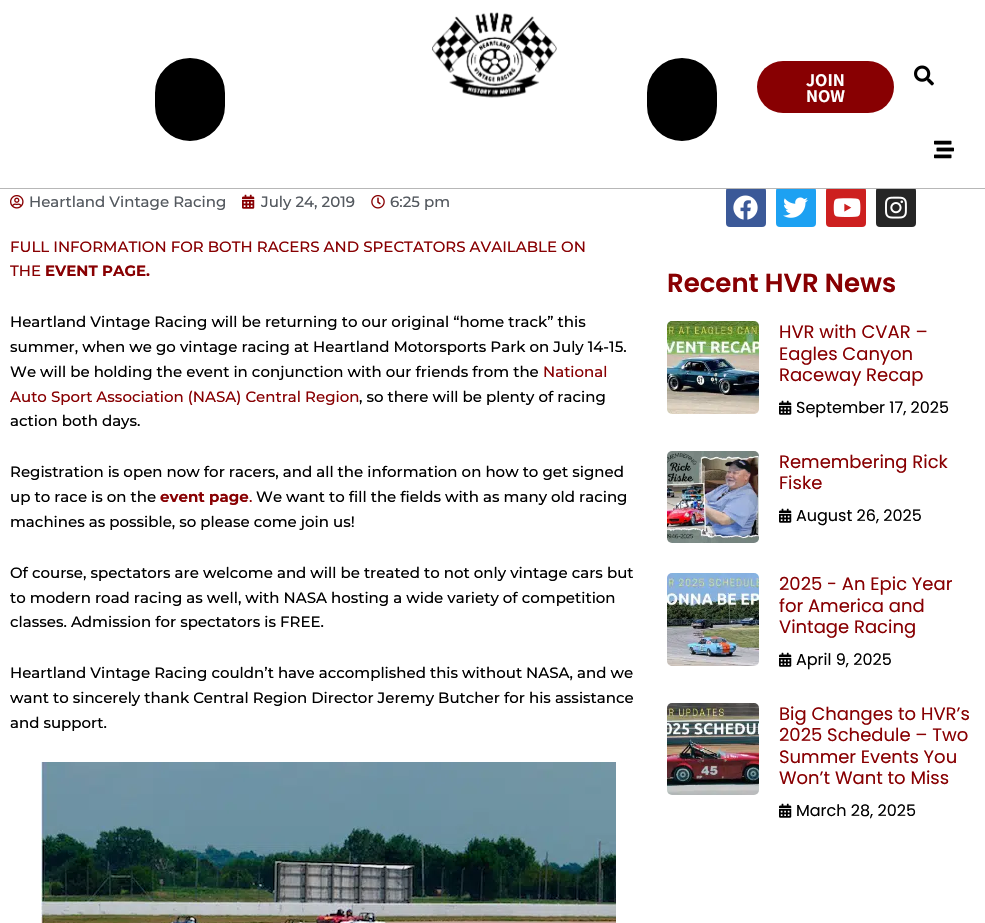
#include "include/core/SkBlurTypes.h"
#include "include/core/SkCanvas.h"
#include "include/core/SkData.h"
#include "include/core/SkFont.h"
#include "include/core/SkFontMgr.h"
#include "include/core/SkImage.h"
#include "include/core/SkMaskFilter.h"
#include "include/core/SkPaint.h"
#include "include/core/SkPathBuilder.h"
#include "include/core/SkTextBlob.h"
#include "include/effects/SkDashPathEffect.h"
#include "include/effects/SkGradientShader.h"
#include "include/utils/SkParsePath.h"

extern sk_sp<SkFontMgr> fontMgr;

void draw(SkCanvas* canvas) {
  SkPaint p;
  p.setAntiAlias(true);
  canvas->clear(SK_ColorWHITE);
  p.setColor(SkColorSetRGB(59, 89, 152));
  canvas->drawRoundRect(SkRect::MakeLTRB(726, 187, 766, 227), 4, 4, p);
  p.setColor(SkColorSetRGB(29, 161, 242));
  canvas->drawRoundRect(SkRect::MakeLTRB(776, 187, 816, 227), 4, 4, p);
  p.setColor(SkColorSetRGB(205, 32, 31));
  canvas->drawRoundRect(SkRect::MakeLTRB(826, 187, 866, 227), 4, 4, p);
  p.setColor(SkColorSetRGB(38, 38, 38));
  canvas->drawRoundRect(SkRect::MakeLTRB(876, 187, 916, 227), 4, 4, p);
  p.setColor(SK_ColorWHITE);
  canvas->drawRect(SkRect::MakeLTRB(727, 187, 915, 188), p);
  p.setColor(SkColorSetRGB(183, 183, 183));
  canvas->drawRect(SkRect::MakeLTRB(0, 188, 985, 189), p);
  p.setColor(SK_ColorBLACK);
  canvas->drawRoundRect(SkRect::MakeLTRB(153, 56, 227, 143), 37, 37, p);
  p.setStyle(SkPaint::kStroke_Style);
  p.setStrokeWidth(4);
  p.setColor(SK_ColorWHITE);
  canvas->drawRoundRect(SkRect::MakeLTRB(153, 56, 227, 143), 37, 37, p);
  canvas->drawImageRect(SkImages::DeferredFromEncodedData(SkData::MakeFromFileName("images/1.png")), SkRect::MakeLTRB(432, 12, 557, 98), SkSamplingOptions());
  p.setStyle(SkPaint::kFill_Style);
  p.setColor(SK_ColorBLACK);
  canvas->drawRoundRect(SkRect::MakeLTRB(645, 56, 719, 143), 37, 37, p);
  p.setStyle(SkPaint::kStroke_Style);
  p.setColor(SK_ColorWHITE);
  canvas->drawRoundRect(SkRect::MakeLTRB(645, 56, 719, 143), 37, 37, p);
  p.setStyle(SkPaint::kFill_Style);
  p.setColor(SkColorSetRGB(136, 0, 2));
  canvas->drawRoundRect(SkRect::MakeLTRB(757, 61, 894, 113), 26, 26, p);
  canvas->drawImageRect(SkImages::DeferredFromEncodedData(SkData::MakeFromFileName("images/2.png")), SkRect::MakeLTRB(914, 65, 934, 86), SkSamplingOptions());
  canvas->drawImageRect(SkImages::DeferredFromEncodedData(SkData::MakeFromFileName("images/3.png")), SkRect::MakeLTRB(934, 140, 954, 159), SkSamplingOptions());
  canvas->drawImageRect(SkImages::DeferredFromEncodedData(SkData::MakeFromFileName("images/4.png")), SkRect::MakeLTRB(10, 195, 24, 209), SkSamplingOptions());
  canvas->drawImageRect(SkImages::DeferredFromEncodedData(SkData::MakeFromFileName("images/5.png")), SkRect::MakeLTRB(242, 194, 255, 209), SkSamplingOptions());
  canvas->drawImageRect(SkImages::DeferredFromEncodedData(SkData::MakeFromFileName("images/6.png")), SkRect::MakeLTRB(371, 195, 385, 209), SkSamplingOptions());
  canvas->drawImageRect(SkImages::DeferredFromEncodedData(SkData::MakeFromFileName("images/7.png")), SkRect::MakeLTRB(41, 762, 616, 923), SkSamplingOptions());
  canvas->drawImageRect(SkImages::DeferredFromEncodedData(SkData::MakeFromFileName("images/8.png")), SkRect::MakeLTRB(733, 195, 758, 220), SkSamplingOptions());
  canvas->drawImageRect(SkImages::DeferredFromEncodedData(SkData::MakeFromFileName("images/9.png")), SkRect::MakeLTRB(783, 197, 808, 218), SkSamplingOptions());
  canvas->drawImageRect(SkImages::DeferredFromEncodedData(SkData::MakeFromFileName("images/10.png")), SkRect::MakeLTRB(833, 198, 861, 217), SkSamplingOptions());
  canvas->drawImageRect(SkImages::DeferredFromEncodedData(SkData::MakeFromFileName("images/11.png")), SkRect::MakeLTRB(885, 196, 907, 219), SkSamplingOptions());
  canvas->drawImageRect(SkImages::DeferredFromEncodedData(SkData::MakeFromFileName("images/12.png")), SkRect::MakeLTRB(667, 321, 759, 414), SkSamplingOptions());
  canvas->drawImageRect(SkImages::DeferredFromEncodedData(SkData::MakeFromFileName("images/13.png")), SkRect::MakeLTRB(779, 400, 792, 415), SkSamplingOptions());
  canvas->drawImageRect(SkImages::DeferredFromEncodedData(SkData::MakeFromFileName("images/14.png")), SkRect::MakeLTRB(667, 451, 759, 543), SkSamplingOptions());
  canvas->drawImageRect(SkImages::DeferredFromEncodedData(SkData::MakeFromFileName("images/13.png")), SkRect::MakeLTRB(779, 508, 792, 523), SkSamplingOptions());
  canvas->drawImageRect(SkImages::DeferredFromEncodedData(SkData::MakeFromFileName("images/15.png")), SkRect::MakeLTRB(667, 573, 759, 666), SkSamplingOptions());
  canvas->drawImageRect(SkImages::DeferredFromEncodedData(SkData::MakeFromFileName("images/13.png")), SkRect::MakeLTRB(779, 652, 792, 667), SkSamplingOptions());
  canvas->drawImageRect(SkImages::DeferredFromEncodedData(SkData::MakeFromFileName("images/16.png")), SkRect::MakeLTRB(667, 703, 759, 795), SkSamplingOptions());
  canvas->drawImageRect(SkImages::DeferredFromEncodedData(SkData::MakeFromFileName("images/13.png")), SkRect::MakeLTRB(779, 803, 792, 818), SkSamplingOptions());
  SkFont font1(fontMgr->matchFamilyStyle("Noto Sans KR", SkFontStyle::Bold()), 16);
  font1.setSubpixel(true);
  p.setColor(SK_ColorWHITE);
  canvas->drawString("JOIN", 806, 86, font1, p);
  canvas->drawString("NOW", 806, 102, font1, p);
  SkFont font2(fontMgr->matchFamilyStyle("Montserrat", SkFontStyle(500, SkFontStyle::kNormal_Width, SkFontStyle::kUpright_Slant)), 15);
  font2.setSubpixel(true);
  p.setColor(SkColorSetRGB(84, 89, 95));
  canvas->drawString("Heartland Vintage Racing", 29, 207, font2, p);
  canvas->drawString("July 24, 2019", 261, 207, font2, p);
  canvas->drawString("6:25 pm", 390, 207, font2, p);
  p.setColor(SkColorSetRGB(136, 0, 2));
  canvas->drawString("FULL INFORMATION FOR BOTH RACERS AND SPECTATORS AVAILABLE ON", 10, 252, font2, p);
  canvas->drawString("THE", 10, 276, font2, p);
  SkFont font3(fontMgr->matchFamilyStyle("Montserrat", SkFontStyle::Bold()), 15);
  font3.setSubpixel(true);
  canvas->drawString("EVENT PAGE.", 45, 276, font3, p);
  p.setColor(SK_ColorBLACK);
  canvas->drawString("Heartland Vintage Racing will be returning to our original “home track” this", 10, 327, font2, p);
  canvas->drawString("summer, when we go vintage racing at Heartland Motorsports Park on July 14-15.", 10, 352, font2, p);
  canvas->drawString("We will be holding the event in conjunction with our friends from the", 10, 377, font2, p);
  p.setColor(SkColorSetRGB(136, 0, 2));
  canvas->drawString("National", 543, 377, font2, p);
  canvas->drawString("Auto Sport Association (NASA) Central Region", 10, 402, font2, p);
  p.setColor(SK_ColorBLACK);
  canvas->drawString(", so there will be plenty of racing", 359, 402, font2, p);
  canvas->drawString("action both days.", 10, 426, font2, p);
  canvas->drawString("Registration is open now for racers, and all the information on how to get signed", 10, 477, font2, p);
  canvas->drawString("up to race is on the", 10, 502, font2, p);
  p.setColor(SkColorSetRGB(136, 0, 2));
  canvas->drawString("event page", 160, 502, font3, p);
  canvas->drawString(".", 249, 502, font2, p);
  p.setColor(SK_ColorBLACK);
  canvas->drawString("We want to fill the fields with as many old racing", 256, 502, font2, p);
  canvas->drawString("machines as possible, so please come join us!", 10, 527, font2, p);
  canvas->drawString("Of course, spectators are welcome and will be treated to not only vintage cars but", 10, 578, font2, p);
  canvas->drawString("to modern road racing as well, with NASA hosting a wide variety of competition", 10, 603, font2, p);
  canvas->drawString("classes. Admission for spectators is FREE.", 10, 627, font2, p);
  canvas->drawString("Heartland Vintage Racing couldn’t have accomplished this without NASA, and we", 10, 678, font2, p);
  canvas->drawString("want to sincerely thank Central Region Director Jeremy Butcher for his assistance", 10, 703, font2, p);
  canvas->drawString("and support.", 10, 728, font2, p);
  SkFont font4(fontMgr->matchFamilyStyle("Poppins", SkFontStyle(600, SkFontStyle::kNormal_Width, SkFontStyle::kUpright_Slant)), 26);
  font4.setSubpixel(true);
  p.setColor(SkColorSetRGB(136, 0, 2));
  canvas->drawString("Recent HVR News", 667, 292, font4, p);
  SkFont font5(fontMgr->matchFamilyStyle("Poppins", SkFontStyle::Normal()), 18);
  font5.setSubpixel(true);
  canvas->drawString("HVR with CVAR –", 779, 338, font5, p);
  canvas->drawString("Eagles Canyon", 779, 360, font5, p);
  canvas->drawString("Raceway Recap", 779, 381, font5, p);
  SkFont font6(fontMgr->matchFamilyStyle("Poppins", SkFontStyle::Normal()), 16);
  font6.setSubpixel(true);
  p.setColor(SK_ColorBLACK);
  canvas->drawString("September 17, 2025", 796, 413, font6, p);
  p.setColor(SkColorSetRGB(136, 0, 2));
  canvas->drawString("Remembering Rick", 779, 468, font5, p);
  canvas->drawString("Fiske", 779, 489, font5, p);
  p.setColor(SK_ColorBLACK);
  canvas->drawString("August 26, 2025", 796, 521, font6, p);
  p.setColor(SkColorSetRGB(136, 0, 2));
  canvas->drawString("2025 - An Epic Year", 779, 590, font5, p);
  canvas->drawString("for America and", 779, 612, font5, p);
  canvas->drawString("Vintage Racing", 779, 633, font5, p);
  p.setColor(SK_ColorBLACK);
  canvas->drawString("April 9, 2025", 796, 665, font6, p);
  p.setColor(SkColorSetRGB(136, 0, 2));
  canvas->drawString("Big Changes to HVR’s", 779, 720, font5, p);
  canvas->drawString("2025 Schedule – Two", 779, 741, font5, p);
  canvas->drawString("Summer Events You", 779, 763, font5, p);
  canvas->drawString("Won’t Want to Miss", 779, 784, font5, p);
  p.setColor(SK_ColorBLACK);
  canvas->drawString("March 28, 2025", 796, 816, font6, p);
}
